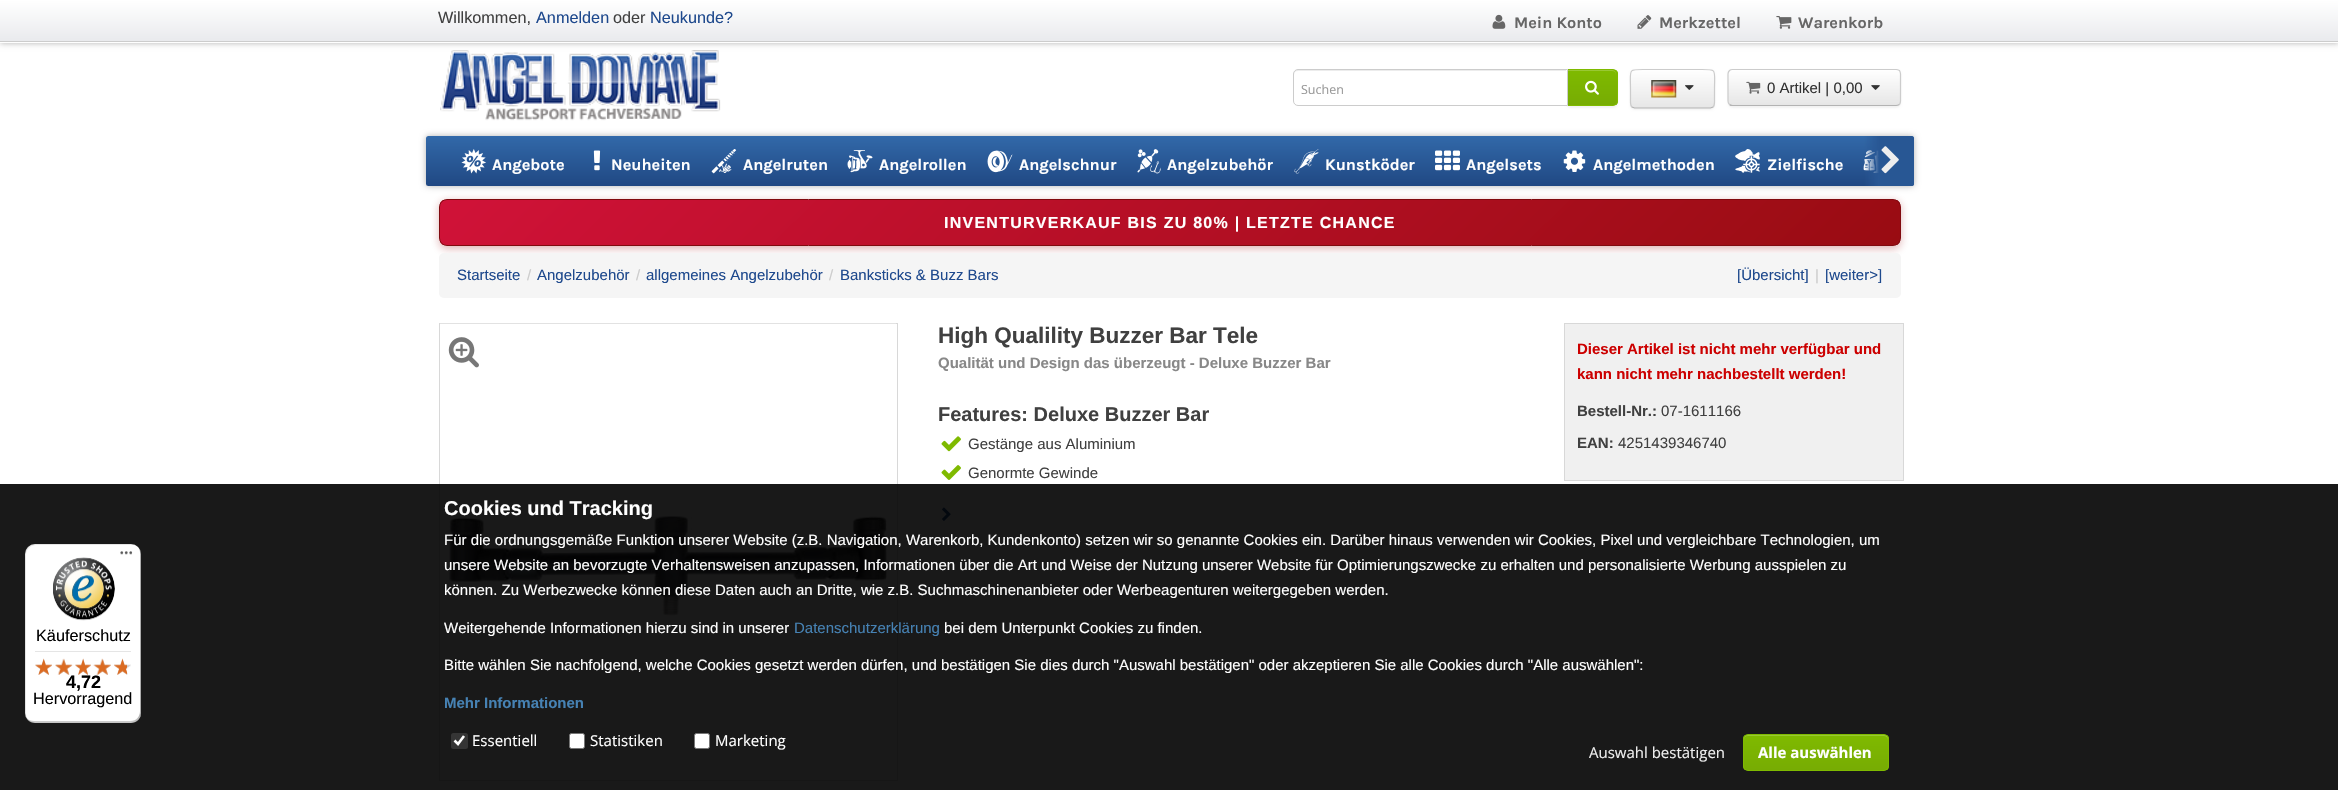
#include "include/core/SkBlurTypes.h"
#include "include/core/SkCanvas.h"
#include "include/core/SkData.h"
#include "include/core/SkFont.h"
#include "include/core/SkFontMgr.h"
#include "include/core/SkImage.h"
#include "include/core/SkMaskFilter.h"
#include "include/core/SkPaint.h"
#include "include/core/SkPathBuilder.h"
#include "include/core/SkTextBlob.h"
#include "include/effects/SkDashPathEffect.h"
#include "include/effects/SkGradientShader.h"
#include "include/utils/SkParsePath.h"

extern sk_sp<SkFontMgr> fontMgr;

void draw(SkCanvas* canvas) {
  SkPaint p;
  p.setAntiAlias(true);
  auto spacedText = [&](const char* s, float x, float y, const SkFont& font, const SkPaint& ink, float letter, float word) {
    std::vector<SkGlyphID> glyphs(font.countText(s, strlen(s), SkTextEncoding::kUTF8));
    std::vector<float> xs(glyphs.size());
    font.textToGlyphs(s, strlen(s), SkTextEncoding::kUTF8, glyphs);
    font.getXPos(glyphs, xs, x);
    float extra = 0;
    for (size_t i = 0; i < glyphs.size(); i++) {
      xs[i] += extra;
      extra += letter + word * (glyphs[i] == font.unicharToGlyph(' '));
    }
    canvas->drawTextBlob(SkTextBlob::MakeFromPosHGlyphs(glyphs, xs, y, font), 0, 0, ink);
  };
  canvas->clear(SK_ColorWHITE);
  canvas->drawImageRect(SkImages::DeferredFromEncodedData(SkData::MakeFromFileName("images/4.png")), SkRect::MakeLTRB(440, 50, 721, 121), SkSamplingOptions());
  p.setColor(SkColorSetARGB(77, 0, 0, 0));
  p.setMaskFilter(SkMaskFilter::MakeBlur(kNormal_SkBlurStyle, 3));
  canvas->drawRect(SkRect::MakeLTRB(0, 0, 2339, 43), p);
  p.setMaskFilter(nullptr);
  {
    const SkColor colors[] = {SK_ColorWHITE, SkColorSetRGB(233, 234, 237)};
    const float stops[] = {0, 1};
    const SkPoint ends[] = {{1169, 0}, {1169, 41}};
    p.setShader(SkGradientShader::MakeLinear(ends, colors, stops, 2, SkTileMode::kClamp));
    p.setAlpha(255);
  }
  canvas->drawRect(SkRect::MakeLTRB(0, 0, 2338, 41), p);
  {
    const SkColor colors[] = {SK_ColorWHITE, SkColorSetRGB(233, 234, 237)};
    const float stops[] = {0, 1};
    const SkPoint ends[] = {{1169, 41}, {1169, 83}};
    p.setShader(SkGradientShader::MakeLinear(ends, colors, stops, 2, SkTileMode::kClamp));
    p.setAlpha(255);
  }
  canvas->drawRect(SkRect::MakeLTRB(0, 42, 2338, 43), p);
  p.setShader(nullptr);
  p.setColor(SkColorSetRGB(204, 204, 204));
  canvas->drawRect(SkRect::MakeLTRB(0, 41, 2338, 42), p);
  canvas->drawImageRect(SkImages::DeferredFromEncodedData(SkData::MakeFromFileName("images/1.png")), SkRect::MakeLTRB(1492, 14, 1506, 29), SkSamplingOptions());
  canvas->drawImageRect(SkImages::DeferredFromEncodedData(SkData::MakeFromFileName("images/2.png")), SkRect::MakeLTRB(1637, 15, 1652, 29), SkSamplingOptions());
  canvas->drawImageRect(SkImages::DeferredFromEncodedData(SkData::MakeFromFileName("images/3.png")), SkRect::MakeLTRB(1776, 16, 1792, 29), SkSamplingOptions());
  p.setColor(SkColorSetARGB(13, 0, 0, 0));
  p.setMaskFilter(SkMaskFilter::MakeBlur(kNormal_SkBlurStyle, 1));
  canvas->drawRoundRect(SkRect::MakeLTRB(1566, 70, 1618, 108), 5, 5, p);
  p.setMaskFilter(nullptr);
  canvas->save();
  canvas->clipPath(SkPathBuilder().moveTo(1566, 69).lineTo(1613, 69).cubicTo(1616, 69, 1618, 71, 1618, 74).lineTo(1618, 101).cubicTo(1618, 104, 1616, 106, 1613, 106).lineTo(1566, 106).close().detach(), true);
  {
    const SkColor colors[] = {SkColorSetRGB(127, 186, 0), SkColorSetRGB(119, 172, 3)};
    const float stops[] = {0, 1};
    const SkPoint ends[] = {{1592, 70}, {1592, 105}};
    p.setShader(SkGradientShader::MakeLinear(ends, colors, stops, 2, SkTileMode::kClamp));
    p.setAlpha(255);
  }
  canvas->drawRect(SkRect::MakeLTRB(1568, 70, 1618, 105), p);
  canvas->restore();
  p.setShader(nullptr);
  p.setColor(SkColorSetRGB(153, 200, 51));
  canvas->drawPath(SkPathBuilder().moveTo(1568, 71).lineTo(1612, 71).cubicTo(1615, 71, 1616, 73, 1616, 75).lineTo(1616, 74).cubicTo(1616, 72, 1614, 70, 1612, 70).lineTo(1568, 70).close().detach(), p);
  p.setStyle(SkPaint::kStroke_Style);
  p.setStrokeWidth(1);
  p.setColor(SkColorSetRGB(127, 186, 0));
  canvas->drawPath(SkPathBuilder().moveTo(1566.5f, 69.5f).lineTo(1613, 69.5f).cubicTo(1615.5f, 69.5f, 1617.5f, 71.5f, 1617.5f, 74).lineTo(1617.5f, 101).cubicTo(1617.5f, 103.5f, 1615.5f, 105.5f, 1613, 105.5f).lineTo(1566.5f, 105.5f).close().detach(), p);
  p.setStyle(SkPaint::kFill_Style);
  p.setColor(SK_ColorWHITE);
  canvas->drawPath(SkPathBuilder().moveTo(1298, 69).lineTo(1568, 69).lineTo(1568, 106).lineTo(1298, 106).cubicTo(1295, 106, 1293, 104, 1293, 101).lineTo(1293, 74).cubicTo(1293, 71, 1295, 69, 1298, 69).close().detach(), p);
  p.setColor(SkColorSetRGB(236, 236, 236));
  canvas->drawPath(SkPathBuilder().moveTo(1298, 71).lineTo(1566, 71).lineTo(1566, 70).lineTo(1298, 70).cubicTo(1295, 70, 1294, 72, 1294, 75).cubicTo(1294, 73, 1295, 71, 1298, 71).close().detach(), p);
  p.setStyle(SkPaint::kStroke_Style);
  p.setColor(SkColorSetRGB(204, 204, 204));
  canvas->drawPath(SkPathBuilder().moveTo(1298, 69.5f).lineTo(1567.5f, 69.5f).lineTo(1567.5f, 105.5f).lineTo(1298, 105.5f).cubicTo(1295.5f, 105.5f, 1293.5f, 103.5f, 1293.5f, 101).lineTo(1293.5f, 74).cubicTo(1293.5f, 71.5f, 1295.5f, 69.5f, 1298, 69.5f).close().detach(), p);
  canvas->drawImageRect(SkImages::DeferredFromEncodedData(SkData::MakeFromFileName("images/5.png")), SkRect::MakeLTRB(1585, 80, 1599, 95), SkSamplingOptions());
  p.setStyle(SkPaint::kFill_Style);
  p.setColor(SkColorSetARGB(13, 0, 0, 0));
  p.setMaskFilter(SkMaskFilter::MakeBlur(kNormal_SkBlurStyle, 1));
  canvas->drawRoundRect(SkRect::MakeLTRB(1630, 70, 1715, 110), 5, 5, p);
  p.setMaskFilter(nullptr);
  p.setColor(SkColorSetRGB(245, 245, 245));
  canvas->drawRoundRect(SkRect::MakeLTRB(1630, 69, 1715, 109), 5, 5, p);
  canvas->save();
  canvas->clipPath(SkPathBuilder().moveTo(1635, 69).lineTo(1710, 69).cubicTo(1713, 69, 1715, 71, 1715, 74).lineTo(1715, 104).cubicTo(1715, 107, 1713, 109, 1710, 109).lineTo(1635, 109).cubicTo(1632, 109, 1630, 107, 1630, 104).lineTo(1630, 74).cubicTo(1630, 71, 1632, 69, 1635, 69).close().detach(), true);
  {
    const SkColor colors[] = {SK_ColorWHITE, SkColorSetRGB(230, 230, 230)};
    const float stops[] = {0, 1};
    const SkPoint ends[] = {{1673, 70}, {1673, 108}};
    p.setShader(SkGradientShader::MakeLinear(ends, colors, stops, 2, SkTileMode::kClamp));
    p.setAlpha(255);
  }
  canvas->drawRect(SkRect::MakeLTRB(1630, 70, 1715, 108), p);
  canvas->restore();
  p.setStyle(SkPaint::kStroke_Style);
  p.setStrokeWidth(1.2f);
  p.setShader(nullptr);
  p.setColor(SkColorSetRGB(179, 179, 179));
  canvas->drawPath(SkPathBuilder().moveTo(1713, 107).lineTo(1710.5f, 108).lineTo(1634.5f, 108).lineTo(1632, 107).detach(), p);
  p.setColor(SkColorSetRGB(204, 204, 204));
  canvas->drawPath(SkPathBuilder().moveTo(1632, 107).cubicTo(1630, 105, 1630.5f, 101, 1630.5f, 99).lineTo(1630.5f, 89).cubicTo(1630.5f, 68, 1627, 69.5f, 1647.5f, 69.5f).lineTo(1697.5f, 69.5f).cubicTo(1718, 69.5f, 1714.5f, 68, 1714.5f, 89).lineTo(1714.5f, 99).cubicTo(1714.5f, 101, 1715, 105, 1713, 107).detach(), p);
  canvas->drawImageRect(SkImages::DeferredFromEncodedData(SkData::MakeFromFileName("images/6.png")), SkRect::MakeLTRB(1651, 80, 1677, 98), SkSamplingOptions());
  canvas->drawImageRect(SkImages::DeferredFromEncodedData(SkData::MakeFromFileName("images/7.png")), SkRect::MakeLTRB(1685, 85, 1694, 90), SkSamplingOptions());
  p.setStyle(SkPaint::kFill_Style);
  p.setColor(SkColorSetARGB(13, 0, 0, 0));
  p.setMaskFilter(SkMaskFilter::MakeBlur(kNormal_SkBlurStyle, 1));
  canvas->drawRoundRect(SkRect::MakeLTRB(1728, 70, 1901, 108), 5, 5, p);
  p.setMaskFilter(nullptr);
  canvas->save();
  canvas->clipPath(SkPathBuilder().moveTo(1733, 69).lineTo(1896, 69).cubicTo(1899, 69, 1901, 71, 1901, 74).lineTo(1901, 101).cubicTo(1901, 104, 1899, 106, 1896, 106).lineTo(1733, 106).cubicTo(1730, 106, 1728, 104, 1728, 101).lineTo(1728, 74).cubicTo(1728, 71, 1730, 69, 1733, 69).close().detach(), true);
  {
    const SkColor colors[] = {SK_ColorWHITE, SkColorSetRGB(230, 230, 230)};
    const float stops[] = {0, 1};
    const SkPoint ends[] = {{1814, 70}, {1814, 105}};
    p.setShader(SkGradientShader::MakeLinear(ends, colors, stops, 2, SkTileMode::kClamp));
    p.setAlpha(255);
  }
  canvas->drawRect(SkRect::MakeLTRB(1728, 70, 1901, 105), p);
  canvas->restore();
  p.setStyle(SkPaint::kStroke_Style);
  p.setShader(nullptr);
  p.setColor(SkColorSetRGB(179, 179, 179));
  canvas->drawPath(SkPathBuilder().moveTo(1899.5f, 104.5f).cubicTo(1898.5f, 105, 1897.5f, 105.5f, 1896, 105.5f).lineTo(1732.5f, 105.5f).cubicTo(1731.5f, 105.5f, 1730, 105, 1729.5f, 104.5f).detach(), p);
  p.setColor(SkColorSetRGB(204, 204, 204));
  canvas->drawPath(SkPathBuilder().moveTo(1729.5f, 104.5f).cubicTo(1728.5f, 103.5f, 1728, 102.5f, 1728, 101).lineTo(1728, 74).cubicTo(1728, 72.5f, 1728.5f, 71.5f, 1729.5f, 70.5f).cubicTo(1730, 70, 1731.5f, 69.5f, 1732.5f, 69.5f).lineTo(1896, 69.5f).cubicTo(1897.5f, 69.5f, 1898.5f, 70, 1899.5f, 70.5f).cubicTo(1900, 71.5f, 1900.5f, 72.5f, 1900.5f, 74).lineTo(1900.5f, 101).cubicTo(1900.5f, 102.5f, 1900, 103.5f, 1899.5f, 104.5f).detach(), p);
  canvas->drawImageRect(SkImages::DeferredFromEncodedData(SkData::MakeFromFileName("images/8.png")), SkRect::MakeLTRB(1746, 81, 1761, 94), SkSamplingOptions());
  canvas->drawImageRect(SkImages::DeferredFromEncodedData(SkData::MakeFromFileName("images/9.png")), SkRect::MakeLTRB(1871, 85, 1880, 90), SkSamplingOptions());
  p.setStyle(SkPaint::kFill_Style);
  p.setColor(SkColorSetARGB(77, 0, 0, 0));
  p.setMaskFilter(SkMaskFilter::MakeBlur(kNormal_SkBlurStyle, 3));
  canvas->drawRoundRect(SkRect::MakeLTRB(426, 136, 1914, 186), 2.5f, 2.5f, p);
  p.setMaskFilter(nullptr);
  {
    const SkColor colors[] = {SkColorSetRGB(50, 105, 169), SkColorSetRGB(32, 72, 131)};
    const float stops[] = {0, 1};
    const SkPoint ends[] = {{1170, 136}, {1170, 186}};
    p.setShader(SkGradientShader::MakeLinear(ends, colors, stops, 2, SkTileMode::kClamp));
    p.setAlpha(255);
  }
  canvas->drawRoundRect(SkRect::MakeLTRB(426, 136, 1914, 186), 2.5f, 2.5f, p);
  canvas->drawImageRect(SkImages::DeferredFromEncodedData(SkData::MakeFromFileName("images/10.png")), SkRect::MakeLTRB(461, 149, 486, 174), SkSamplingOptions());
  canvas->drawImageRect(SkImages::DeferredFromEncodedData(SkData::MakeFromFileName("images/11.png")), SkRect::MakeLTRB(593, 150, 601, 171), SkSamplingOptions());
  canvas->drawImageRect(SkImages::DeferredFromEncodedData(SkData::MakeFromFileName("images/12.png")), SkRect::MakeLTRB(711, 149, 737, 174), SkSamplingOptions());
  canvas->drawImageRect(SkImages::DeferredFromEncodedData(SkData::MakeFromFileName("images/13.png")), SkRect::MakeLTRB(847, 150, 873, 173), SkSamplingOptions());
  canvas->drawImageRect(SkImages::DeferredFromEncodedData(SkData::MakeFromFileName("images/14.png")), SkRect::MakeLTRB(987, 150, 1013, 173), SkSamplingOptions());
  canvas->drawImageRect(SkImages::DeferredFromEncodedData(SkData::MakeFromFileName("images/15.png")), SkRect::MakeLTRB(1137, 149, 1161, 174), SkSamplingOptions());
  canvas->drawImageRect(SkImages::DeferredFromEncodedData(SkData::MakeFromFileName("images/16.png")), SkRect::MakeLTRB(1294, 149, 1319, 174), SkSamplingOptions());
  canvas->drawImageRect(SkImages::DeferredFromEncodedData(SkData::MakeFromFileName("images/17.png")), SkRect::MakeLTRB(1435, 150, 1460, 171), SkSamplingOptions());
  canvas->drawImageRect(SkImages::DeferredFromEncodedData(SkData::MakeFromFileName("images/18.png")), SkRect::MakeLTRB(1563, 150, 1586, 172), SkSamplingOptions());
  canvas->drawImageRect(SkImages::DeferredFromEncodedData(SkData::MakeFromFileName("images/19.png")), SkRect::MakeLTRB(1735, 149, 1760, 173), SkSamplingOptions());
  canvas->drawImageRect(SkImages::DeferredFromEncodedData(SkData::MakeFromFileName("images/20.png")), SkRect::MakeLTRB(1863, 150, 1879, 173), SkSamplingOptions());
  {
    const SkColor colors[] = {SkColorSetARGB(0, 40, 87, 148), SkColorSetARGB(128, 40, 87, 148), SkColorSetRGB(40, 87, 148), SkColorSetRGB(40, 87, 148)};
    const float stops[] = {0, 0.15f, 0.3f, 1};
    const SkPoint ends[] = {{1864, 161}, {1914, 161}};
    p.setShader(SkGradientShader::MakeLinear(ends, colors, stops, 4, SkTileMode::kClamp));
    p.setAlpha(255);
  }
  canvas->drawPath(SkPathBuilder().moveTo(1864, 136).lineTo(1911.5f, 136).cubicTo(1913, 136, 1914, 137, 1914, 138.5f).lineTo(1914, 183.5f).cubicTo(1914, 185, 1913, 186, 1911.5f, 186).lineTo(1864, 186).close().detach(), p);
  canvas->drawImageRect(SkImages::DeferredFromEncodedData(SkData::MakeFromFileName("images/21.png")), SkRect::MakeLTRB(1881, 146, 1899, 174), SkSamplingOptions());
  p.setShader(nullptr);
  p.setColor(SkColorSetARGB(77, 153, 12, 18));
  p.setMaskFilter(SkMaskFilter::MakeBlur(kNormal_SkBlurStyle, 4));
  canvas->drawRoundRect(SkRect::MakeLTRB(439, 201, 1901, 249), 8, 8, p);
  p.setMaskFilter(nullptr);
  canvas->save();
  canvas->clipPath(SkPathBuilder().moveTo(447, 199).lineTo(1893, 199).cubicTo(1897.5f, 199, 1901, 202.5f, 1901, 207).lineTo(1901, 238).cubicTo(1901, 242.5f, 1897.5f, 246, 1893, 246).lineTo(447, 246).cubicTo(442.5f, 246, 439, 242.5f, 439, 238).lineTo(439, 207).cubicTo(439, 202.5f, 442.5f, 199, 447, 199).close().detach(), true);
  {
    const SkColor colors[] = {SkColorSetRGB(208, 18, 56), SkColorSetRGB(153, 12, 18)};
    const float stops[] = {0, 1};
    const SkPoint ends[] = {{794, -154}, {1546, 599}};
    p.setShader(SkGradientShader::MakeLinear(ends, colors, stops, 2, SkTileMode::kClamp));
    p.setAlpha(255);
  }
  canvas->drawRect(SkRect::MakeLTRB(440, 200, 1900, 245), p);
  canvas->restore();
  p.setStyle(SkPaint::kStroke_Style);
  p.setStrokeWidth(1);
  p.setShader(nullptr);
  p.setColor(SkColorSetRGB(128, 10, 15));
  canvas->drawRoundRect(SkRect::MakeLTRB(439.5f, 199.5f, 1900.5f, 245.5f), 7.5f, 7.5f, p);
  p.setStyle(SkPaint::kFill_Style);
  p.setColor(SkColorSetRGB(245, 245, 245));
  canvas->drawRoundRect(SkRect::MakeLTRB(439, 253, 1901, 298), 5, 5, p);
  p.setStyle(SkPaint::kStroke_Style);
  p.setColor(SkColorSetRGB(216, 216, 216));
  canvas->drawRect(SkRect::MakeLTRB(439.5f, 323.5f, 897.5f, 780.5f), p);
  canvas->drawImageRect(SkImages::DeferredFromEncodedData(SkData::MakeFromFileName("images/22.png")), SkRect::MakeLTRB(440, 323, 896, 616), SkSamplingOptions());
  canvas->drawImageRect(SkImages::DeferredFromEncodedData(SkData::MakeFromFileName("images/23.png")), SkRect::MakeLTRB(448, 337, 479, 368), SkSamplingOptions());
  canvas->drawImageRect(SkImages::DeferredFromEncodedData(SkData::MakeFromFileName("images/24.png")), SkRect::MakeLTRB(941, 436, 961, 452), SkSamplingOptions());
  canvas->drawImageRect(SkImages::DeferredFromEncodedData(SkData::MakeFromFileName("images/25.png")), SkRect::MakeLTRB(941, 465, 961, 480), SkSamplingOptions());
  canvas->drawImageRect(SkImages::DeferredFromEncodedData(SkData::MakeFromFileName("images/26.png")), SkRect::MakeLTRB(942, 507, 951, 521), SkSamplingOptions());
  p.setStyle(SkPaint::kFill_Style);
  p.setColor(SkColorSetRGB(240, 240, 240));
  canvas->drawRect(SkRect::MakeLTRB(1564.5f, 323.5f, 1903.5f, 480.5f), p);
  p.setStyle(SkPaint::kStroke_Style);
  p.setColor(SkColorSetRGB(216, 216, 216));
  canvas->drawRect(SkRect::MakeLTRB(1564.5f, 323.5f, 1903.5f, 480.5f), p);
  p.setStyle(SkPaint::kFill_Style);
  p.setColor(SkColorSetARGB(230, 0, 0, 0));
  canvas->drawRect(SkRect::MakeLTRB(0, 484, 2338, 790), p);
  p.setColor(SK_ColorWHITE);
  canvas->drawRoundRect(SkRect::MakeLTRB(25, 544, 141, 723), 10, 10, p);
  p.setColor(SkColorSetARGB(26, 0, 0, 0));
  canvas->drawPath(SkPathBuilder().moveTo(36, 545).lineTo(132, 545).cubicTo(134, 545, 136, 545, 137, 546).cubicTo(136, 545, 133, 544, 131, 544).lineTo(35, 544).cubicTo(29, 544, 25, 548, 25, 554).lineTo(25, 713).cubicTo(25, 717, 27, 720, 30, 722).cubicTo(28, 720, 26, 717, 26, 714).lineTo(26, 555).cubicTo(26, 549, 31, 545, 36, 545).close().detach(), p);
  p.setColor(SkColorSetARGB(51, 0, 0, 0));
  canvas->drawPath(SkPathBuilder().moveTo(26, 717).cubicTo(28, 721, 31, 723, 35, 723).lineTo(131, 723).cubicTo(137, 723, 141, 719, 141, 713).lineTo(141, 554).cubicTo(141, 552, 140, 550, 139, 548).lineTo(140, 552).lineTo(140, 711).cubicTo(140, 717, 136, 721, 130, 721).lineTo(34, 721).cubicTo(31, 721, 28, 720, 26, 717).close().detach(), p);
  p.setColor(SkColorSetARGB(51, 50, 50, 50));
  canvas->drawPath(SkPathBuilder().moveTo(26, 718).cubicTo(28, 721, 31, 723, 35, 723).lineTo(131, 723).cubicTo(137, 723, 141, 719, 141, 713).lineTo(141, 554).cubicTo(141, 552, 140, 549, 139, 548).cubicTo(140, 549, 140, 551, 140, 553).lineTo(140, 712).cubicTo(140, 717, 136, 722, 130, 722).lineTo(34, 722).cubicTo(31, 722, 28, 720, 26, 718).close().detach(), p);
  canvas->drawImageRect(SkImages::DeferredFromEncodedData(SkData::MakeFromFileName("images/27.png")), SkRect::MakeLTRB(120, 551, 133, 555), SkSamplingOptions());
  p.setColor(SkColorSetARGB(77, 255, 255, 255));
  canvas->drawPath(SkPathBuilder().moveTo(26, 718).cubicTo(28, 721, 31, 723, 35, 723).lineTo(131, 723).cubicTo(137, 723, 141, 719, 141, 713).lineTo(141, 712).cubicTo(141, 717, 136, 722, 131, 722).lineTo(34, 722).cubicTo(31, 722, 28, 720, 26, 718).close().detach(), p);
  canvas->drawImageRect(SkImages::DeferredFromEncodedData(SkData::MakeFromFileName("images/28.png")), SkRect::MakeLTRB(53, 557, 115, 621), SkSamplingOptions());
  p.setColor(SkColorSetRGB(229, 229, 229));
  canvas->drawRect(SkRect::MakeLTRB(35, 651, 131, 652), p);
  canvas->drawImageRect(SkImages::DeferredFromEncodedData(SkData::MakeFromFileName("images/34.png")), SkRect::MakeLTRB(35, 659, 52, 675), SkSamplingOptions());
  canvas->drawImageRect(SkImages::DeferredFromEncodedData(SkData::MakeFromFileName("images/29.png")), SkRect::MakeLTRB(35, 658, 52, 675), SkSamplingOptions());
  canvas->drawImageRect(SkImages::DeferredFromEncodedData(SkData::MakeFromFileName("images/35.png")), SkRect::MakeLTRB(55, 659, 72, 675), SkSamplingOptions());
  canvas->drawImageRect(SkImages::DeferredFromEncodedData(SkData::MakeFromFileName("images/30.png")), SkRect::MakeLTRB(55, 658, 73, 675), SkSamplingOptions());
  canvas->drawImageRect(SkImages::DeferredFromEncodedData(SkData::MakeFromFileName("images/36.png")), SkRect::MakeLTRB(75, 659, 91, 675), SkSamplingOptions());
  canvas->drawImageRect(SkImages::DeferredFromEncodedData(SkData::MakeFromFileName("images/31.png")), SkRect::MakeLTRB(75, 658, 91, 675), SkSamplingOptions());
  canvas->drawImageRect(SkImages::DeferredFromEncodedData(SkData::MakeFromFileName("images/37.png")), SkRect::MakeLTRB(93, 659, 111, 675), SkSamplingOptions());
  canvas->drawImageRect(SkImages::DeferredFromEncodedData(SkData::MakeFromFileName("images/32.png")), SkRect::MakeLTRB(93, 658, 111, 675), SkSamplingOptions());
  canvas->drawImageRect(SkImages::DeferredFromEncodedData(SkData::MakeFromFileName("images/38.png")), SkRect::MakeLTRB(114, 659, 131, 675), SkSamplingOptions());
  canvas->drawImageRect(SkImages::DeferredFromEncodedData(SkData::MakeFromFileName("images/33.png")), SkRect::MakeLTRB(114, 658, 127, 675), SkSamplingOptions());
  p.setColor(SkColorSetRGB(53, 53, 53));
  canvas->drawRoundRect(SkRect::MakeLTRB(451, 733, 468, 749), 2.5f, 2.5f, p);
  p.setStyle(SkPaint::kStroke_Style);
  p.setStrokeWidth(2.6f);
  p.setColor(SK_ColorWHITE);
  canvas->drawPath(SkPathBuilder().moveTo(454.5f, 740.5f).lineTo(458, 744).lineTo(464, 736).detach(), p);
  p.setStyle(SkPaint::kFill_Style);
  canvas->drawRoundRect(SkRect::MakeLTRB(569.5f, 733.5f, 584.5f, 748.5f), 2, 2, p);
  p.setStyle(SkPaint::kStroke_Style);
  p.setStrokeWidth(1);
  p.setColor(SkColorSetRGB(118, 118, 118));
  canvas->drawRoundRect(SkRect::MakeLTRB(569.5f, 733.5f, 584.5f, 748.5f), 2, 2, p);
  p.setStyle(SkPaint::kFill_Style);
  p.setColor(SK_ColorWHITE);
  canvas->drawRoundRect(SkRect::MakeLTRB(694.5f, 733.5f, 709.5f, 748.5f), 2, 2, p);
  p.setStyle(SkPaint::kStroke_Style);
  p.setColor(SkColorSetRGB(118, 118, 118));
  canvas->drawRoundRect(SkRect::MakeLTRB(694.5f, 733.5f, 709.5f, 748.5f), 2, 2, p);
  canvas->save();
  canvas->clipPath(SkPathBuilder().moveTo(1748, 734).lineTo(1884, 734).cubicTo(1887, 734, 1889, 736, 1889, 739).lineTo(1889, 766).cubicTo(1889, 769, 1887, 771, 1884, 771).lineTo(1748, 771).cubicTo(1745, 771, 1743, 769, 1743, 766).lineTo(1743, 739).cubicTo(1743, 736, 1745, 734, 1748, 734).close().detach(), true);
  p.setStyle(SkPaint::kFill_Style);
  {
    const SkColor colors[] = {SkColorSetRGB(127, 186, 0), SkColorSetRGB(119, 172, 3)};
    const float stops[] = {0, 1};
    const SkPoint ends[] = {{1816, 735}, {1816, 770}};
    p.setShader(SkGradientShader::MakeLinear(ends, colors, stops, 2, SkTileMode::kClamp));
    p.setAlpha(255);
  }
  canvas->drawRect(SkRect::MakeLTRB(1743, 735, 1889, 770), p);
  canvas->restore();
  p.setShader(nullptr);
  p.setColor(SkColorSetRGB(153, 200, 51));
  canvas->drawPath(SkPathBuilder().moveTo(1748, 736).lineTo(1884, 736).cubicTo(1886, 736, 1888, 738, 1888, 740).lineTo(1888, 739).cubicTo(1888, 737, 1886, 735, 1884, 735).lineTo(1748, 735).cubicTo(1746, 735, 1744, 737, 1744, 739).lineTo(1744, 740).cubicTo(1744, 738, 1745, 736, 1748, 736).close().detach(), p);
  p.setStyle(SkPaint::kStroke_Style);
  p.setColor(SkColorSetRGB(127, 186, 0));
  canvas->drawRoundRect(SkRect::MakeLTRB(1743.5f, 734.5f, 1888.5f, 770.5f), 4.5f, 4.5f, p);
  SkFont font1(fontMgr->matchFamilyStyle("Liberation Sans", SkFontStyle::Normal()), 16.25f);
  font1.setSubpixel(true);
  p.setStyle(SkPaint::kFill_Style);
  p.setColor(SkColorSetRGB(64, 64, 64));
  canvas->drawString("Willkommen,", 438, 23, font1, p);
  p.setColor(SkColorSetRGB(30, 73, 141));
  canvas->drawString("Anmelden", 536, 23, font1, p);
  p.setColor(SkColorSetRGB(64, 64, 64));
  canvas->drawString("oder", 613, 23, font1, p);
  p.setColor(SkColorSetRGB(30, 73, 141));
  canvas->drawString("Neukunde?", 650, 23, font1, p);
  SkFont font2(fontMgr->matchFamilyStyle("Karla", SkFontStyle::Bold()), 16.25f);
  font2.setSubpixel(true);
  p.setColor(SkColorSetRGB(102, 102, 102));
  canvas->drawString("Mein Konto", 1514, 28, font2, p);
  canvas->drawString("Merkzettel", 1659, 28, font2, p);
  canvas->drawString("Warenkorb", 1798, 28, font2, p);
  SkFont font3(fontMgr->matchFamilyStyle("Open Sans", SkFontStyle::Normal()), 12.5f);
  font3.setSubpixel(true);
  p.setColor(SkColorSetRGB(153, 153, 153));
  canvas->drawString("Suchen", 1301, 94, font3, p);
  SkFont font4(fontMgr->matchFamilyStyle("Liberation Sans", SkFontStyle::Normal()), 15);
  font4.setSubpixel(true);
  p.setColor(SkColorSetRGB(51, 51, 51));
  canvas->drawString("0 Artikel | 0,00", 1767, 93, font4, p);
  p.setColor(SK_ColorWHITE);
  canvas->drawString("Angebote", 492, 170, font2, p);
  canvas->drawString("Neuheiten", 611, 170, font2, p);
  canvas->drawString("Angelruten", 743, 170, font2, p);
  canvas->drawString("Angelrollen", 879, 170, font2, p);
  canvas->drawString("Angelschnur", 1019, 170, font2, p);
  canvas->drawString("Angelzubehör", 1167, 170, font2, p);
  canvas->drawString("Kunstköder", 1325, 170, font2, p);
  canvas->drawString("Angelsets", 1466, 170, font2, p);
  canvas->drawString("Angelmethoden", 1593, 170, font2, p);
  canvas->drawString("Zielfische", 1767, 170, font2, p);
  SkFont font5(fontMgr->matchFamilyStyle("Liberation Sans", SkFontStyle::Bold()), 16);
  font5.setSubpixel(true);
  spacedText("INVENTURVERKAUF BIS ZU 80% | LETZTE CHANCE", 944, 228, font5, p, 1.25f, 0);
  p.setColor(SkColorSetRGB(30, 73, 141));
  canvas->drawString("Startseite", 457, 280, font4, p);
  p.setColor(SkColorSetRGB(204, 204, 204));
  canvas->drawString("/", 527, 280, font4, p);
  p.setColor(SkColorSetRGB(30, 73, 141));
  canvas->drawString("Angelzubehör", 537, 280, font4, p);
  p.setColor(SkColorSetRGB(204, 204, 204));
  canvas->drawString("/", 636, 280, font4, p);
  p.setColor(SkColorSetRGB(30, 73, 141));
  canvas->drawString("allgemeines Angelzubehör", 646, 280, font4, p);
  p.setColor(SkColorSetRGB(204, 204, 204));
  canvas->drawString("/", 829, 280, font4, p);
  p.setColor(SkColorSetRGB(30, 73, 141));
  canvas->drawString("Banksticks & Buzz Bars", 840, 280, font4, p);
  canvas->drawString("[Übersicht]", 1737, 280, font4, p);
  p.setColor(SkColorSetRGB(204, 204, 204));
  canvas->drawString("|", 1815, 280, font4, p);
  p.setColor(SkColorSetRGB(30, 73, 141));
  canvas->drawString("[weiter>]", 1825, 280, font4, p);
  SkFont font6(fontMgr->matchFamilyStyle("Liberation Sans", SkFontStyle::Bold()), 22.5f);
  font6.setSubpixel(true);
  p.setColor(SkColorSetRGB(64, 64, 64));
  canvas->drawString("High Qualility Buzzer Bar Tele", 938, 343, font6, p);
  SkFont font7(fontMgr->matchFamilyStyle("Liberation Sans", SkFontStyle::Bold()), 15);
  font7.setSubpixel(true);
  p.setColor(SkColorSetRGB(136, 136, 136));
  canvas->drawString("Qualität und Design das überzeugt - Deluxe Buzzer Bar", 938, 368, font7, p);
  SkFont font8(fontMgr->matchFamilyStyle("Liberation Sans", SkFontStyle::Bold()), 20);
  font8.setSubpixel(true);
  p.setColor(SkColorSetRGB(64, 64, 64));
  canvas->drawString("Features: Deluxe Buzzer Bar", 938, 421, font8, p);
  canvas->drawString("Gestänge aus Aluminium", 968, 449, font4, p);
  canvas->drawString("Genormte Gewinde", 968, 478, font4, p);
  p.setColor(SkColorSetRGB(204, 0, 0));
  canvas->drawString("Dieser Artikel ist nicht mehr verfügbar und", 1577, 354, font7, p);
  canvas->drawString("kann nicht mehr nachbestellt werden!", 1577, 379, font7, p);
  p.setColor(SkColorSetRGB(64, 64, 64));
  canvas->drawString("Bestell-Nr.:", 1577, 416, font7, p);
  canvas->drawString("07-1611166", 1661, 416, font4, p);
  canvas->drawString("EAN:", 1577, 448, font7, p);
  canvas->drawString("4251439346740", 1618, 448, font4, p);
  p.setColor(SK_ColorBLACK);
  canvas->drawString("Käuferschutz", 36, 641, font1, p);
  SkFont font9(fontMgr->matchFamilyStyle("Liberation Sans", SkFontStyle::Bold()), 18);
  font9.setSubpixel(true);
  canvas->drawString("4,72", 66, 688, font9, p);
  canvas->drawString("Hervorragend", 33, 704, font1, p);
  p.setColor(SK_ColorWHITE);
  canvas->drawString("Cookies und Tracking", 444, 515, font8, p);
  canvas->drawString("Für die ordnungsgemäße Funktion unserer Website (z.B. Navigation, Warenkorb, Kundenkonto) setzen wir so genannte Cookies ein. Darüber hinaus verwenden wir Cookies, Pixel und vergleichbare Technologien, um", 444, 545, font4, p);
  canvas->drawString("unsere Website an bevorzugte Verhaltensweisen anzupassen, Informationen über die Art und Weise der Nutzung unserer Website für Optimierungszwecke zu erhalten und personalisierte Werbung ausspielen zu", 444, 570, font4, p);
  canvas->drawString("können. Zu Werbezwecke können diese Daten auch an Dritte, wie z.B. Suchmaschinenanbieter oder Werbeagenturen weitergegeben werden.", 444, 595, font4, p);
  canvas->drawString("Weitergehende Informationen hierzu sind in unserer", 444, 633, font4, p);
  p.setColor(SkColorSetRGB(70, 130, 180));
  canvas->drawString("Datenschutzerklärung", 794, 633, font4, p);
  p.setColor(SK_ColorWHITE);
  canvas->drawString("bei dem Unterpunkt Cookies zu finden.", 944, 633, font4, p);
  canvas->drawString("Bitte wählen Sie nachfolgend, welche Cookies gesetzt werden dürfen, und bestätigen Sie dies durch \"Auswahl bestätigen\" oder akzeptieren Sie alle Cookies durch \"Alle auswählen\":", 444, 670, font4, p);
  p.setColor(SkColorSetRGB(70, 130, 180));
  canvas->drawString("Mehr Informationen", 444, 708, font7, p);
  SkFont font10(fontMgr->matchFamilyStyle("Open Sans", SkFontStyle::Normal()), 15);
  font10.setSubpixel(true);
  p.setColor(SK_ColorWHITE);
  canvas->drawString("Essentiell", 472, 746, font10, p);
  canvas->drawString("Statistiken", 590, 746, font10, p);
  canvas->drawString("Marketing", 715, 746, font10, p);
  p.setColor(SkColorSetRGB(238, 238, 238));
  canvas->drawString("Auswahl bestätigen", 1589, 758, font10, p);
  SkFont font11(fontMgr->matchFamilyStyle("Open Sans", SkFontStyle::Bold()), 15);
  font11.setSubpixel(true);
  p.setColor(SK_ColorWHITE);
  canvas->drawString("Alle auswählen", 1758, 758, font11, p);
}
